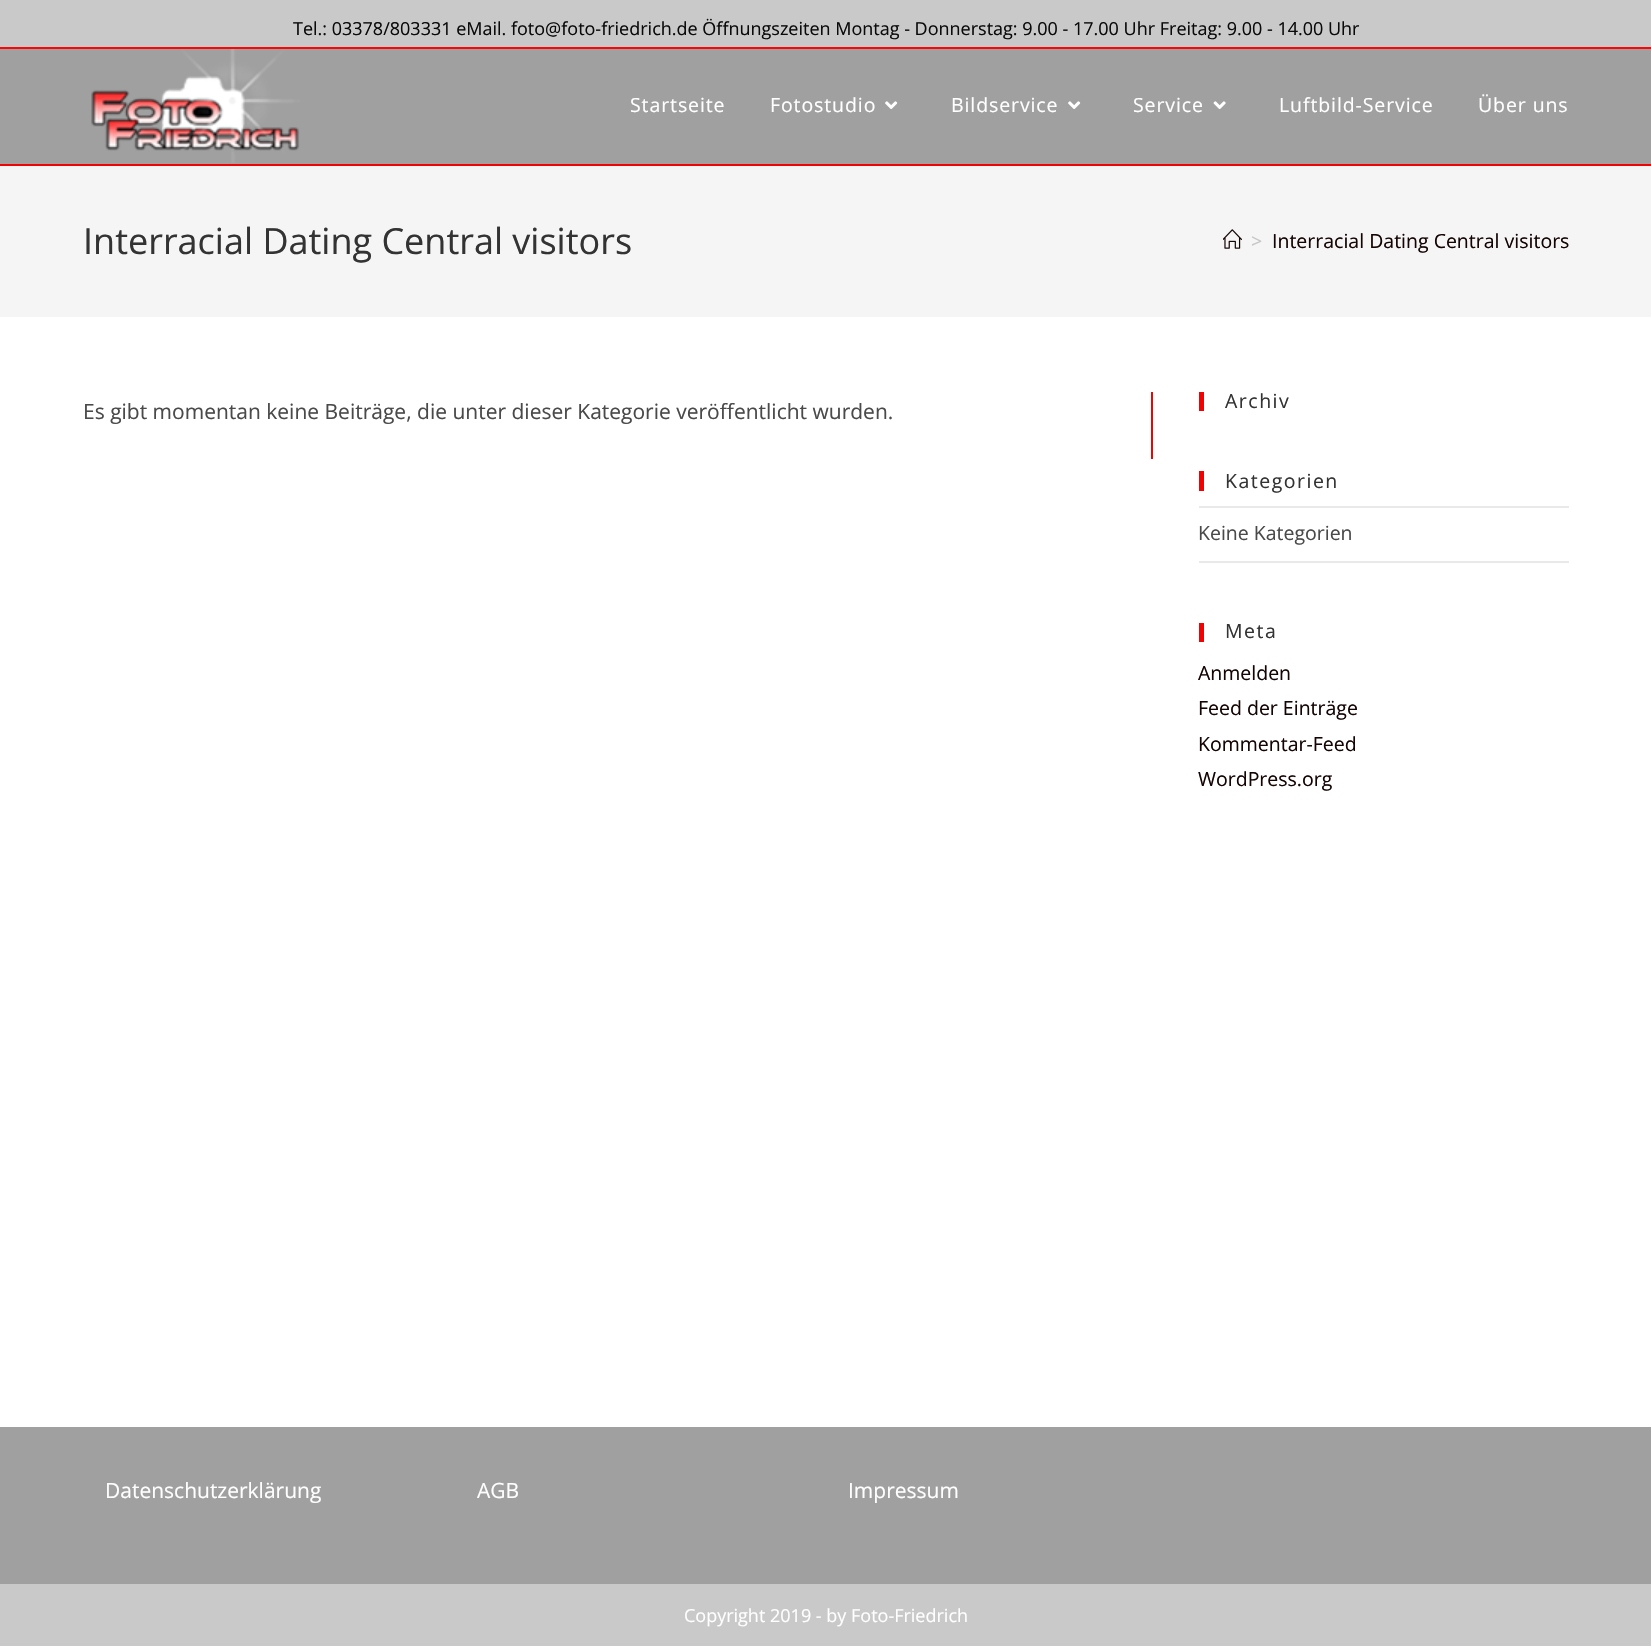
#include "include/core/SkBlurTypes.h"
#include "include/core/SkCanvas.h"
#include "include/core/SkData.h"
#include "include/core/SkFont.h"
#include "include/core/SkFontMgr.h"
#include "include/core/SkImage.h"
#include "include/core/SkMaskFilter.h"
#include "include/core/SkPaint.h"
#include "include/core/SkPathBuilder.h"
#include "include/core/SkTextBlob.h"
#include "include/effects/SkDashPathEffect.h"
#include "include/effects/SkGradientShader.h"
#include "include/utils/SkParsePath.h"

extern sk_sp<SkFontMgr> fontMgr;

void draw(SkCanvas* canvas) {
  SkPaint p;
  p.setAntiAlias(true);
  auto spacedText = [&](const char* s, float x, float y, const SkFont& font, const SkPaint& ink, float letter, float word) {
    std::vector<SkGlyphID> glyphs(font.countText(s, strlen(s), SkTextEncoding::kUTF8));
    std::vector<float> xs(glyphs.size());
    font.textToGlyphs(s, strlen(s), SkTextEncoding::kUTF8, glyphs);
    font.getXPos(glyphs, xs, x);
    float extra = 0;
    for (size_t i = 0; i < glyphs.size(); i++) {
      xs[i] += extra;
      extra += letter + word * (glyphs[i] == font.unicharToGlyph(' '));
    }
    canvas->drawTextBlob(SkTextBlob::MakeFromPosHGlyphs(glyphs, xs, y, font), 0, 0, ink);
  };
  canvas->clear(SK_ColorWHITE);
  p.setColor(SkColorSetRGB(201, 201, 201));
  canvas->drawRect(SkRect::MakeLTRB(0, 0, 1651, 47), p);
  p.setColor(SkColorSetRGB(254, 4, 5));
  canvas->drawRect(SkRect::MakeLTRB(0, 47, 1651, 49), p);
  p.setColor(SkColorSetRGB(160, 160, 160));
  canvas->drawRect(SkRect::MakeLTRB(0, 49, 1651, 164), p);
  p.setColor(SkColorSetRGB(239, 4, 5));
  canvas->drawRect(SkRect::MakeLTRB(0, 164, 1651, 166), p);
  canvas->drawImageRect(SkImages::DeferredFromEncodedData(SkData::MakeFromFileName("images/1.png")), SkRect::MakeLTRB(91, 49, 300, 163), SkSamplingOptions());
  canvas->drawImageRect(SkImages::DeferredFromEncodedData(SkData::MakeFromFileName("images/2.png")), SkRect::MakeLTRB(885, 101, 898, 109), SkSamplingOptions());
  canvas->drawImageRect(SkImages::DeferredFromEncodedData(SkData::MakeFromFileName("images/2.png")), SkRect::MakeLTRB(1068, 101, 1081, 109), SkSamplingOptions());
  canvas->drawImageRect(SkImages::DeferredFromEncodedData(SkData::MakeFromFileName("images/3.png")), SkRect::MakeLTRB(1213, 101, 1226, 109), SkSamplingOptions());
  p.setColor(SkColorSetRGB(245, 245, 245));
  canvas->drawRect(SkRect::MakeLTRB(0, 166, 1651, 317), p);
  canvas->drawImageRect(SkImages::DeferredFromEncodedData(SkData::MakeFromFileName("images/4.png")), SkRect::MakeLTRB(1223, 229, 1242, 249), SkSamplingOptions());
  p.setColor(SkColorSetRGB(239, 4, 5));
  canvas->drawRect(SkRect::MakeLTRB(1151, 392, 1153, 459), p);
  canvas->drawRect(SkRect::MakeLTRB(1199, 392, 1204, 411), p);
  canvas->drawRect(SkRect::MakeLTRB(1199, 471, 1204, 491), p);
  p.setColor(SkColorSetRGB(233, 233, 233));
  canvas->drawRect(SkRect::MakeLTRB(1199, 506, 1569, 508), p);
  canvas->drawRect(SkRect::MakeLTRB(1199, 561, 1569, 563), p);
  p.setColor(SkColorSetRGB(239, 4, 5));
  canvas->drawRect(SkRect::MakeLTRB(1199, 623, 1204, 642), p);
  p.setColor(SkColorSetRGB(160, 160, 160));
  canvas->drawRect(SkRect::MakeLTRB(0, 1427, 1651, 1584), p);
  p.setColor(SkColorSetRGB(201, 201, 201));
  canvas->drawRect(SkRect::MakeLTRB(0, 1584, 1651, 1646), p);
  SkFont font1(fontMgr->matchFamilyStyle("Open Sans", SkFontStyle::Normal()), 18);
  font1.setSubpixel(true);
  p.setColor(SkColorSetRGB(10, 10, 10));
  canvas->drawString("Tel.: 03378/803331 eMail. foto@foto-friedrich.de Öffnungszeiten Montag - Donnerstag: 9.00 - 17.00 Uhr Freitag: 9.00 - 14.00 Uhr", 293, 35, font1, p);
  SkFont font2(fontMgr->matchFamilyStyle("Open Sans", SkFontStyle::Normal()), 19.5f);
  font2.setSubpixel(true);
  p.setColor(SK_ColorWHITE);
  spacedText("Startseite", 630, 112, font2, p, 0.9f, 0);
  spacedText("Fotostudio", 770, 112, font2, p, 0.9f, 0);
  spacedText("Bildservice", 951, 112, font2, p, 0.9f, 0);
  spacedText("Service", 1133, 112, font2, p, 0.9f, 0);
  spacedText("Luftbild-Service", 1279, 112, font2, p, 0.9f, 0);
  spacedText("Über uns", 1478, 112, font2, p, 0.9f, 0);
  SkFont font3(fontMgr->matchFamilyStyle("Open Sans", SkFontStyle::Normal()), 36);
  font3.setSubpixel(true);
  p.setColor(SkColorSetRGB(51, 51, 51));
  canvas->drawString("Interracial Dating Central visitors", 83, 254, font3, p);
  p.setColor(SkColorSetRGB(198, 198, 198));
  canvas->drawString(">", 1251, 248, font2, p);
  p.setColor(SkColorSetRGB(20, 5, 4));
  canvas->drawString("Interracial Dating Central visitors", 1272, 248, font2, p);
  SkFont font4(fontMgr->matchFamilyStyle("Open Sans", SkFontStyle::Normal()), 21);
  font4.setSubpixel(true);
  p.setColor(SkColorSetRGB(74, 74, 74));
  canvas->drawString("Es gibt momentan keine Beiträge, die unter dieser Kategorie veröffentlicht wurden.", 83, 419, font4, p);
  p.setColor(SkColorSetRGB(51, 51, 51));
  spacedText("Archiv", 1225, 408, font2, p, 1.5f, 0);
  spacedText("Kategorien", 1225, 488, font2, p, 1.5f, 0);
  p.setColor(SkColorSetRGB(74, 74, 74));
  canvas->drawString("Keine Kategorien", 1198, 540, font2, p);
  p.setColor(SkColorSetRGB(51, 51, 51));
  spacedText("Meta", 1225, 638, font2, p, 1.5f, 0);
  p.setColor(SkColorSetRGB(20, 5, 4));
  canvas->drawString("Anmelden", 1198, 680, font2, p);
  canvas->drawString("Feed der Einträge", 1198, 715, font2, p);
  canvas->drawString("Kommentar-Feed", 1198, 751, font2, p);
  canvas->drawString("WordPress.org", 1198, 786, font2, p);
  p.setColor(SK_ColorWHITE);
  canvas->drawString("Datenschutzerklärung", 105, 1498, font4, p);
  canvas->drawString("AGB", 477, 1498, font4, p);
  canvas->drawString("Impressum", 848, 1498, font4, p);
  canvas->drawString("Copyright 2019 - by Foto-Friedrich", 684, 1622, font1, p);
}
